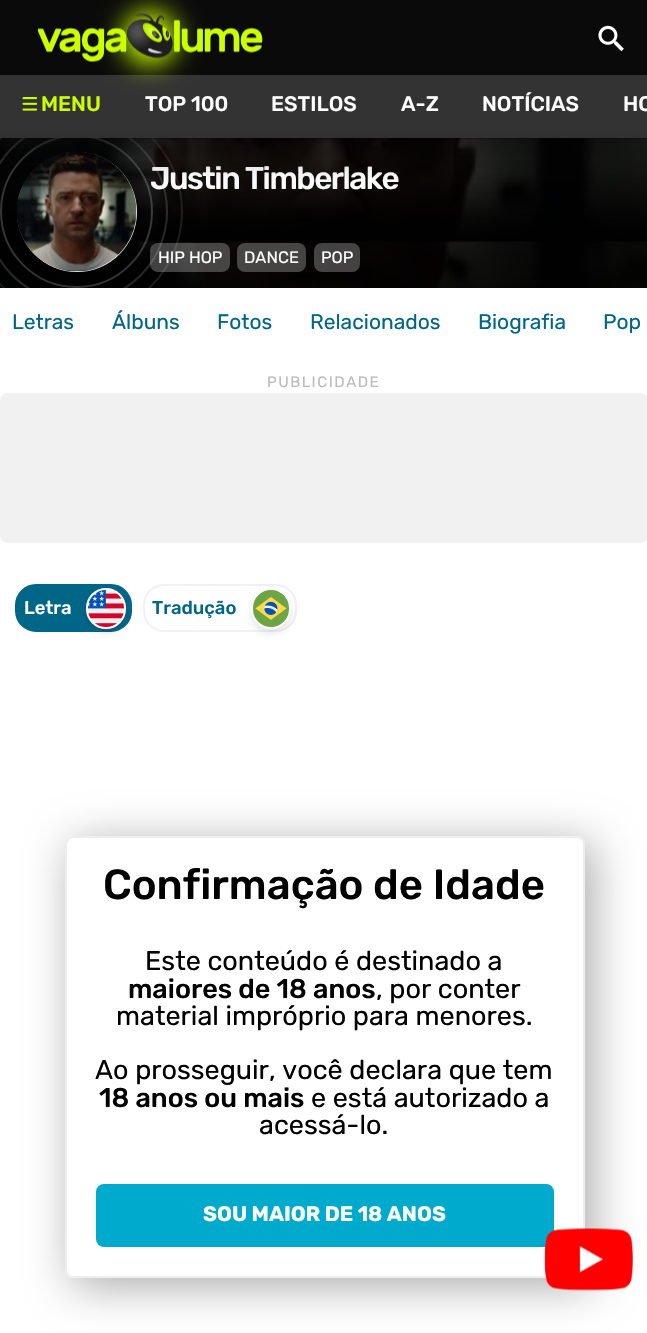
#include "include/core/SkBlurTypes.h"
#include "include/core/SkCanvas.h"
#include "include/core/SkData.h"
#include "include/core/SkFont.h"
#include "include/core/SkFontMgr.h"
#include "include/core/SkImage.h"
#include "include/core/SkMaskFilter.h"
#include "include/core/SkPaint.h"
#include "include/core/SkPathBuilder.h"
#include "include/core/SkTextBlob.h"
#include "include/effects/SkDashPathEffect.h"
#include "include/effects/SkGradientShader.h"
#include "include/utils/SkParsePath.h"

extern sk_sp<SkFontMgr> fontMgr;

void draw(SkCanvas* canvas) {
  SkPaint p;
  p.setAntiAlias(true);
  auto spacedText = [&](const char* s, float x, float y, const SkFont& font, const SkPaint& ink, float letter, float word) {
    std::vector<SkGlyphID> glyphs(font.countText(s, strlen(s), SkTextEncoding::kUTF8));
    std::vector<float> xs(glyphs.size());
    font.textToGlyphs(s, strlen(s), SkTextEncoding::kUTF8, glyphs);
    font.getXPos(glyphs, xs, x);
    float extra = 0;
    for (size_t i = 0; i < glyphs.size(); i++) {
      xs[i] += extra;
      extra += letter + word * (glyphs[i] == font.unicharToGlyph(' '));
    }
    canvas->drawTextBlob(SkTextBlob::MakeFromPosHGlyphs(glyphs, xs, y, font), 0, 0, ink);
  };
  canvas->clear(SK_ColorWHITE);
  canvas->drawImageRect(SkImages::DeferredFromEncodedData(SkData::MakeFromFileName("images/4.png")), SkRect::MakeLTRB(0, 138, 647, 288), SkSamplingOptions());
  canvas->drawImageRect(SkImages::DeferredFromEncodedData(SkData::MakeFromFileName("images/6.png")), SkRect::MakeLTRB(0, 138, 647, 288), SkSamplingOptions());
  {
    const SkColor colors[] = {SkColorSetARGB(64, 0, 0, 0), SkColorSetARGB(191, 0, 0, 0)};
    const float stops[] = {0, 0.6f};
    const SkPoint ends[] = {{324, 138}, {324, 288}};
    p.setShader(SkGradientShader::MakeLinear(ends, colors, stops, 2, SkTileMode::kClamp));
    p.setAlpha(255);
  }
  canvas->drawRect(SkRect::MakeLTRB(0, 138, 647, 288), p);
  p.setShader(nullptr);
  p.setColor(SkColorSetARGB(64, 255, 255, 255));
  canvas->drawRoundRect(SkRect::MakeLTRB(150, 243, 230, 272), 8, 8, p);
  canvas->drawRoundRect(SkRect::MakeLTRB(237, 243, 306, 272), 8, 8, p);
  canvas->drawRoundRect(SkRect::MakeLTRB(314, 243, 360, 272), 8, 8, p);
  p.setColor(SkColorSetRGB(241, 241, 241));
  canvas->drawRoundRect(SkRect::MakeLTRB(0, 393, 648, 543), 8, 8, p);
  p.setColor(SkColorSetRGB(0, 102, 136));
  canvas->drawRoundRect(SkRect::MakeLTRB(16, 585, 131, 631), 20, 20, p);
  p.setStyle(SkPaint::kStroke_Style);
  p.setStrokeWidth(2);
  canvas->drawRoundRect(SkRect::MakeLTRB(16, 585, 131, 631), 20, 20, p);
  p.setStyle(SkPaint::kFill_Style);
  p.setColor(SkColorSetARGB(26, 0, 0, 0));
  p.setMaskFilter(SkMaskFilter::MakeBlur(kNormal_SkBlurStyle, 3.5f));
  canvas->drawRoundRect(SkRect::MakeLTRB(86, 593, 126, 633), 20, 20, p);
  p.setMaskFilter(nullptr);
  canvas->drawImageRect(SkImages::DeferredFromEncodedData(SkData::MakeFromFileName("images/7.png")), SkRect::MakeLTRB(88, 590, 124, 627), SkSamplingOptions());
  p.setStyle(SkPaint::kStroke_Style);
  p.setColor(SK_ColorWHITE);
  canvas->drawRoundRect(SkRect::MakeLTRB(87, 589, 125, 628), 19, 19, p);
  p.setColor(SkColorSetRGB(241, 241, 241));
  canvas->drawRoundRect(SkRect::MakeLTRB(144, 585, 296, 631), 20, 20, p);
  p.setStyle(SkPaint::kFill_Style);
  p.setColor(SkColorSetARGB(26, 0, 0, 0));
  p.setMaskFilter(SkMaskFilter::MakeBlur(kNormal_SkBlurStyle, 3.5f));
  canvas->drawRoundRect(SkRect::MakeLTRB(251, 593, 291, 633), 20, 20, p);
  p.setMaskFilter(nullptr);
  canvas->drawImageRect(SkImages::DeferredFromEncodedData(SkData::MakeFromFileName("images/8.png")), SkRect::MakeLTRB(253, 590, 289, 627), SkSamplingOptions());
  p.setStyle(SkPaint::kStroke_Style);
  p.setColor(SK_ColorWHITE);
  canvas->drawRoundRect(SkRect::MakeLTRB(252, 589, 290, 628), 19, 19, p);
  canvas->save();
  canvas->clipPath(SkPathBuilder(SkPathFillType::kEvenOdd).moveTo(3, 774).lineTo(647, 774).lineTo(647, 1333).lineTo(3, 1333).close().moveTo(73, 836).lineTo(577, 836).cubicTo(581.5f, 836, 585, 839.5f, 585, 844).lineTo(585, 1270).cubicTo(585, 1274.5f, 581.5f, 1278, 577, 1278).lineTo(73, 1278).cubicTo(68.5f, 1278, 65, 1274.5f, 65, 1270).lineTo(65, 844).cubicTo(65, 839.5f, 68.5f, 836, 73, 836).close().detach(), true);
  p.setStyle(SkPaint::kFill_Style);
  p.setColor(SkColorSetRGB(170, 170, 170));
  p.setMaskFilter(SkMaskFilter::MakeBlur(kNormal_SkBlurStyle, 22.5f));
  canvas->drawRoundRect(SkRect::MakeLTRB(72, 843, 593, 1286), 8, 8, p);
  p.setMaskFilter(nullptr);
  canvas->restore();
  p.setColor(SK_ColorWHITE);
  canvas->drawRoundRect(SkRect::MakeLTRB(66, 837, 584, 1277), 7, 7, p);
  p.setStyle(SkPaint::kStroke_Style);
  p.setColor(SkColorSetRGB(238, 238, 238));
  canvas->drawRoundRect(SkRect::MakeLTRB(66, 837, 584, 1277), 7, 7, p);
  p.setStyle(SkPaint::kFill_Style);
  p.setColor(SkColorSetRGB(0, 170, 204));
  canvas->drawRoundRect(SkRect::MakeLTRB(96, 1184, 554, 1247), 8, 8, p);
  canvas->drawImageRect(SkImages::DeferredFromEncodedData(SkData::MakeFromFileName("images/9.png")), SkRect::MakeLTRB(544, 1228, 633, 1291), SkSamplingOptions());
  SkFont font1(fontMgr->matchFamilyStyle("Rubik", SkFontStyle(500, SkFontStyle::kNormal_Width, SkFontStyle::kUpright_Slant)), 31.5f);
  font1.setSubpixel(true);
  p.setColor(SK_ColorWHITE);
  spacedText("Justin Timberlake", 150, 189, font1, p, -1.5f, 0);
  p.setStyle(SkPaint::kStroke_Style);
  p.setColor(SkColorSetARGB(51, 255, 255, 255));
  canvas->drawCircle(76.5f, 211.5f, 75.5f, p);
  SkFont font2(fontMgr->matchFamilyStyle("Rubik", SkFontStyle::Normal()), 16.5f);
  font2.setSubpixel(true);
  p.setStyle(SkPaint::kFill_Style);
  p.setColor(SK_ColorWHITE);
  canvas->drawString("HIP HOP", 158, 263, font2, p);
  canvas->save();
  canvas->clipRect(SkRect::MakeLTRB(0, 138, 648, 288));
  p.setStyle(SkPaint::kStroke_Style);
  p.setColor(SkColorSetARGB(38, 255, 255, 255));
  canvas->drawCircle(76.5f, 211.5f, 90.5f, p);
  p.setColor(SkColorSetARGB(26, 255, 255, 255));
  canvas->drawCircle(76.5f, 211.5f, 105.5f, p);
  canvas->restore();
  p.setStyle(SkPaint::kFill_Style);
  p.setColor(SkColorSetRGB(241, 241, 241));
  canvas->drawCircle(77, 212, 60, p);
  canvas->drawImageRect(SkImages::DeferredFromEncodedData(SkData::MakeFromFileName("images/5.png")), SkRect::MakeLTRB(17, 152, 137, 272), SkSamplingOptions());
  p.setColor(SK_ColorBLACK);
  p.setMaskFilter(SkMaskFilter::MakeBlur(kNormal_SkBlurStyle, 22.5f));
  canvas->drawRect(SkRect::MakeLTRB(0, -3, 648, 135), p);
  p.setMaskFilter(nullptr);
  p.setColor(SkColorSetRGB(51, 51, 51));
  canvas->drawRect(SkRect::MakeLTRB(0, 75, 647, 135), p);
  p.setColor(SkColorSetRGB(10, 10, 10));
  canvas->drawRect(SkRect::MakeLTRB(0, 0, 647, 75), p);
  p.setColor(SkColorSetRGB(204, 255, 0));
  p.setMaskFilter(SkMaskFilter::MakeBlur(kNormal_SkBlurStyle, 13.5f));
  canvas->drawRoundRect(SkRect::MakeLTRB(123, 11, 177, 65), 27, 27, p);
  p.setMaskFilter(nullptr);
  canvas->drawImageRect(SkImages::DeferredFromEncodedData(SkData::MakeFromFileName("images/1.png")), SkRect::MakeLTRB(38, 13, 263, 62), SkSamplingOptions());
  SkFont font3(fontMgr->matchFamilyStyle("Rubik", SkFontStyle(500, SkFontStyle::kNormal_Width, SkFontStyle::kUpright_Slant)), 21);
  font3.setSubpixel(true);
  p.setColor(SK_ColorWHITE);
  canvas->drawString("HO", 623, 111, font3, p);
  canvas->drawString("NOTÍCIAS", 482, 111, font3, p);
  canvas->drawString("A-Z", 401, 111, font3, p);
  canvas->drawString("ESTILOS", 271, 111, font3, p);
  canvas->drawString("TOP 100", 145, 111, font3, p);
  p.setColor(SkColorSetRGB(204, 255, 0));
  canvas->drawString("MENU", 41, 111, font3, p);
  canvas->drawImageRect(SkImages::DeferredFromEncodedData(SkData::MakeFromFileName("images/3.png")), SkRect::MakeLTRB(22, 97, 38, 111), SkSamplingOptions());
  canvas->drawImageRect(SkImages::DeferredFromEncodedData(SkData::MakeFromFileName("images/2.png")), SkRect::MakeLTRB(598, 25, 624, 52), SkSamplingOptions());
  p.setColor(SkColorSetRGB(49, 49, 49));
  canvas->drawRect(SkRect::MakeLTRB(0, 135, 647, 138), p);
  p.setColor(SK_ColorWHITE);
  canvas->drawString("DANCE", 244, 263, font2, p);
  canvas->drawString("POP", 321, 263, font2, p);
  SkFont font4(fontMgr->matchFamilyStyle("Rubik", SkFontStyle::Normal()), 21);
  font4.setSubpixel(true);
  p.setColor(SkColorSetRGB(0, 102, 136));
  canvas->drawString("Letras", 12, 329, font4, p);
  canvas->drawString("Álbuns", 112, 329, font4, p);
  canvas->drawString("Fotos", 217, 329, font4, p);
  canvas->drawString("Relacionados", 310, 329, font4, p);
  canvas->drawString("Biografia", 478, 329, font4, p);
  canvas->drawString("Pop", 603, 329, font4, p);
  SkFont font5(fontMgr->matchFamilyStyle("Rubik", SkFontStyle::Normal()), 15);
  font5.setSubpixel(true);
  p.setColor(SkColorSetRGB(187, 187, 187));
  spacedText("PUBLICIDADE", 267, 387, font5, p, 1.5f, 0);
  SkFont font6(fontMgr->matchFamilyStyle("Rubik", SkFontStyle(500, SkFontStyle::kNormal_Width, SkFontStyle::kUpright_Slant)), 18.5f);
  font6.setSubpixel(true);
  p.setColor(SK_ColorWHITE);
  canvas->drawString("Letra", 24, 614, font6, p);
  p.setColor(SkColorSetRGB(0, 102, 136));
  canvas->drawString("Tradução", 152, 614, font6, p);
  SkFont font7(fontMgr->matchFamilyStyle("Rubik", SkFontStyle(500, SkFontStyle::kNormal_Width, SkFontStyle::kUpright_Slant)), 42);
  font7.setSubpixel(true);
  p.setColor(SK_ColorBLACK);
  canvas->drawString("Confirmação de Idade", 103, 899, font7, p);
  SkFont font8(fontMgr->matchFamilyStyle("Rubik", SkFontStyle::Normal()), 27);
  font8.setSubpixel(true);
  canvas->drawString("Este conteúdo é destinado a", 145, 970, font8, p);
  SkFont font9(fontMgr->matchFamilyStyle("Rubik", SkFontStyle(500, SkFontStyle::kNormal_Width, SkFontStyle::kUpright_Slant)), 27);
  font9.setSubpixel(true);
  canvas->drawString("maiores de 18 anos", 128, 998, font9, p);
  canvas->drawString(", por conter", 376, 998, font8, p);
  canvas->drawString("material impróprio para menores.", 116, 1025, font8, p);
  canvas->drawString("Ao prosseguir, você declara que tem", 95, 1079, font8, p);
  canvas->drawString("18 anos ou mais", 99, 1107, font9, p);
  canvas->drawString("e está autorizado a", 311, 1107, font8, p);
  canvas->drawString("acessá-lo.", 259, 1134, font8, p);
  SkFont font10(fontMgr->matchFamilyStyle("Rubik", SkFontStyle::Bold()), 21);
  font10.setSubpixel(true);
  p.setColor(SK_ColorWHITE);
  canvas->drawString("SOU MAIOR DE 18 ANOS", 203, 1221, font10, p);
}
